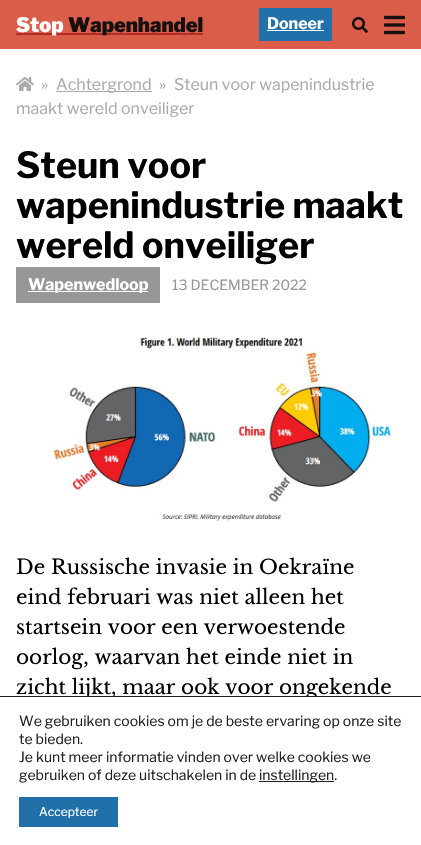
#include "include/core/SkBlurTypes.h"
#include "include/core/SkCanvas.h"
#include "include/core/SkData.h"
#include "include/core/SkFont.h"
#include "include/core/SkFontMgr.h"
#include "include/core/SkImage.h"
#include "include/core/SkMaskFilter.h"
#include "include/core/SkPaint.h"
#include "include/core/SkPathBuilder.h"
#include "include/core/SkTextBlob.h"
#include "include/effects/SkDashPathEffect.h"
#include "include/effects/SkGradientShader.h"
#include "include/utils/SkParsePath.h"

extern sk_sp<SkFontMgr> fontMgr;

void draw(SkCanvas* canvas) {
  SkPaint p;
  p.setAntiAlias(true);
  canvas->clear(SK_ColorWHITE);
  p.setColor(SkColorSetRGB(218, 93, 73));
  canvas->drawRect(SkRect::MakeLTRB(0, 0, 421, 49), p);
  p.setColor(SkColorSetRGB(178, 43, 36));
  canvas->drawRect(SkRect::MakeLTRB(16, 33, 203, 35), p);
  p.setColor(SkColorSetRGB(34, 112, 170));
  canvas->drawRect(SkRect::MakeLTRB(259, 8, 332, 41), p);
  p.setColor(SK_ColorWHITE);
  canvas->drawRect(SkRect::MakeLTRB(267, 30, 324, 31), p);
  canvas->drawImageRect(SkImages::DeferredFromEncodedData(SkData::MakeFromFileName("images/1.png")), SkRect::MakeLTRB(352, 17, 368, 33), SkSamplingOptions());
  canvas->drawImageRect(SkImages::DeferredFromEncodedData(SkData::MakeFromFileName("images/2.png")), SkRect::MakeLTRB(384, 15, 405, 35), SkSamplingOptions());
  canvas->drawImageRect(SkImages::DeferredFromEncodedData(SkData::MakeFromFileName("images/3.png")), SkRect::MakeLTRB(16, 77, 34, 91), SkSamplingOptions());
  p.setColor(SkColorSetRGB(170, 170, 170));
  canvas->drawRect(SkRect::MakeLTRB(56, 91, 152, 92), p);
  p.setColor(SkColorSetRGB(151, 151, 151));
  canvas->drawRect(SkRect::MakeLTRB(16, 267, 160, 303), p);
  p.setColor(SK_ColorWHITE);
  canvas->drawRect(SkRect::MakeLTRB(28, 291, 148, 292), p);
  canvas->drawImageRect(SkImages::DeferredFromEncodedData(SkData::MakeFromFileName("images/4.png")), SkRect::MakeLTRB(48, 336, 392, 522), SkSamplingOptions());
  p.setColor(SkColorSetRGB(32, 32, 32));
  canvas->drawRect(SkRect::MakeLTRB(259, 781, 334, 782), p);
  p.setColor(SkColorSetRGB(34, 112, 170));
  canvas->drawRect(SkRect::MakeLTRB(19, 797, 118, 827), p);
  SkFont font1(fontMgr->matchFamilyStyle("Libre Franklin", SkFontStyle(900, SkFontStyle::kNormal_Width, SkFontStyle::kUpright_Slant)), 20);
  font1.setSubpixel(true);
  p.setColor(SK_ColorWHITE);
  canvas->drawString("Stop", 16, 32, font1, p);
  p.setColor(SkColorSetRGB(22, 16, 16));
  canvas->drawString("Wapenhandel", 68, 32, font1, p);
  SkFont font2(fontMgr->matchFamilyStyle("Libre Franklin", SkFontStyle::Bold()), 16);
  font2.setSubpixel(true);
  p.setColor(SK_ColorWHITE);
  canvas->drawString("Doneer", 267, 29, font2, p);
  SkFont font3(fontMgr->matchFamilyStyle("Libre Franklin", SkFontStyle::Normal()), 16);
  font3.setSubpixel(true);
  p.setColor(SkColorSetRGB(170, 170, 170));
  canvas->drawString("»", 41, 90, font3, p);
  canvas->drawString("Achtergrond", 56, 90, font3, p);
  canvas->drawString("»", 159, 90, font3, p);
  canvas->drawString("Steun voor wapenindustrie", 174, 90, font3, p);
  canvas->drawString("maakt wereld onveiliger", 16, 114, font3, p);
  SkFont font4(fontMgr->matchFamilyStyle("Libre Franklin", SkFontStyle::Bold()), 36);
  font4.setSubpixel(true);
  p.setColor(SK_ColorBLACK);
  canvas->drawString("Steun voor", 16, 178, font4, p);
  canvas->drawString("wapenindustrie maakt", 16, 218, font4, p);
  canvas->drawString("wereld onveiliger", 16, 258, font4, p);
  p.setColor(SK_ColorWHITE);
  canvas->drawString("Wapenwedloop", 28, 290, font2, p);
  SkFont font5(fontMgr->matchFamilyStyle("Libre Franklin", SkFontStyle::Normal()), 14);
  font5.setSubpixel(true);
  p.setColor(SkColorSetRGB(151, 151, 151));
  canvas->drawString("13 DECEMBER 2022", 172, 290, font5, p);
  SkFont font6(fontMgr->matchFamilyStyle("Libre Baskerville", SkFontStyle::Normal()), 20);
  font6.setSubpixel(true);
  p.setColor(SK_ColorBLACK);
  canvas->drawString("De Russische invasie in Oekraïne", 16, 574, font6, p);
  canvas->drawString("eind februari was niet alleen het", 16, 604, font6, p);
  canvas->drawString("startsein voor een verwoestende", 16, 634, font6, p);
  canvas->drawString("oorlog, waarvan het einde niet in", 16, 664, font6, p);
  canvas->drawString("zicht lijkt, maar ook voor ongekende", 16, 694, font6, p);
  p.setColor(SK_ColorWHITE);
  canvas->drawRect(SkRect::MakeLTRB(82, 697, 317, 700), p);
  p.setColor(SkColorSetRGB(32, 32, 32));
  canvas->drawRect(SkRect::MakeLTRB(0, 696, 421, 697), p);
  canvas->drawString("We gebruiken cookies om je de beste ervaring op onze site", 19, 726, font5, p);
  canvas->drawString("te bieden.", 19, 744, font5, p);
  canvas->drawString("Je kunt meer informatie vinden over welke cookies we", 19, 762, font5, p);
  canvas->drawString("gebruiken of deze uitschakelen in de", 19, 780, font5, p);
  canvas->drawString("instellingen.", 259, 780, font5, p);
  SkFont font7(fontMgr->matchFamilyStyle("Libre Franklin", SkFontStyle::Normal()), 12);
  font7.setSubpixel(true);
  p.setColor(SK_ColorWHITE);
  canvas->drawString("Accepteer", 39, 816, font7, p);
}
